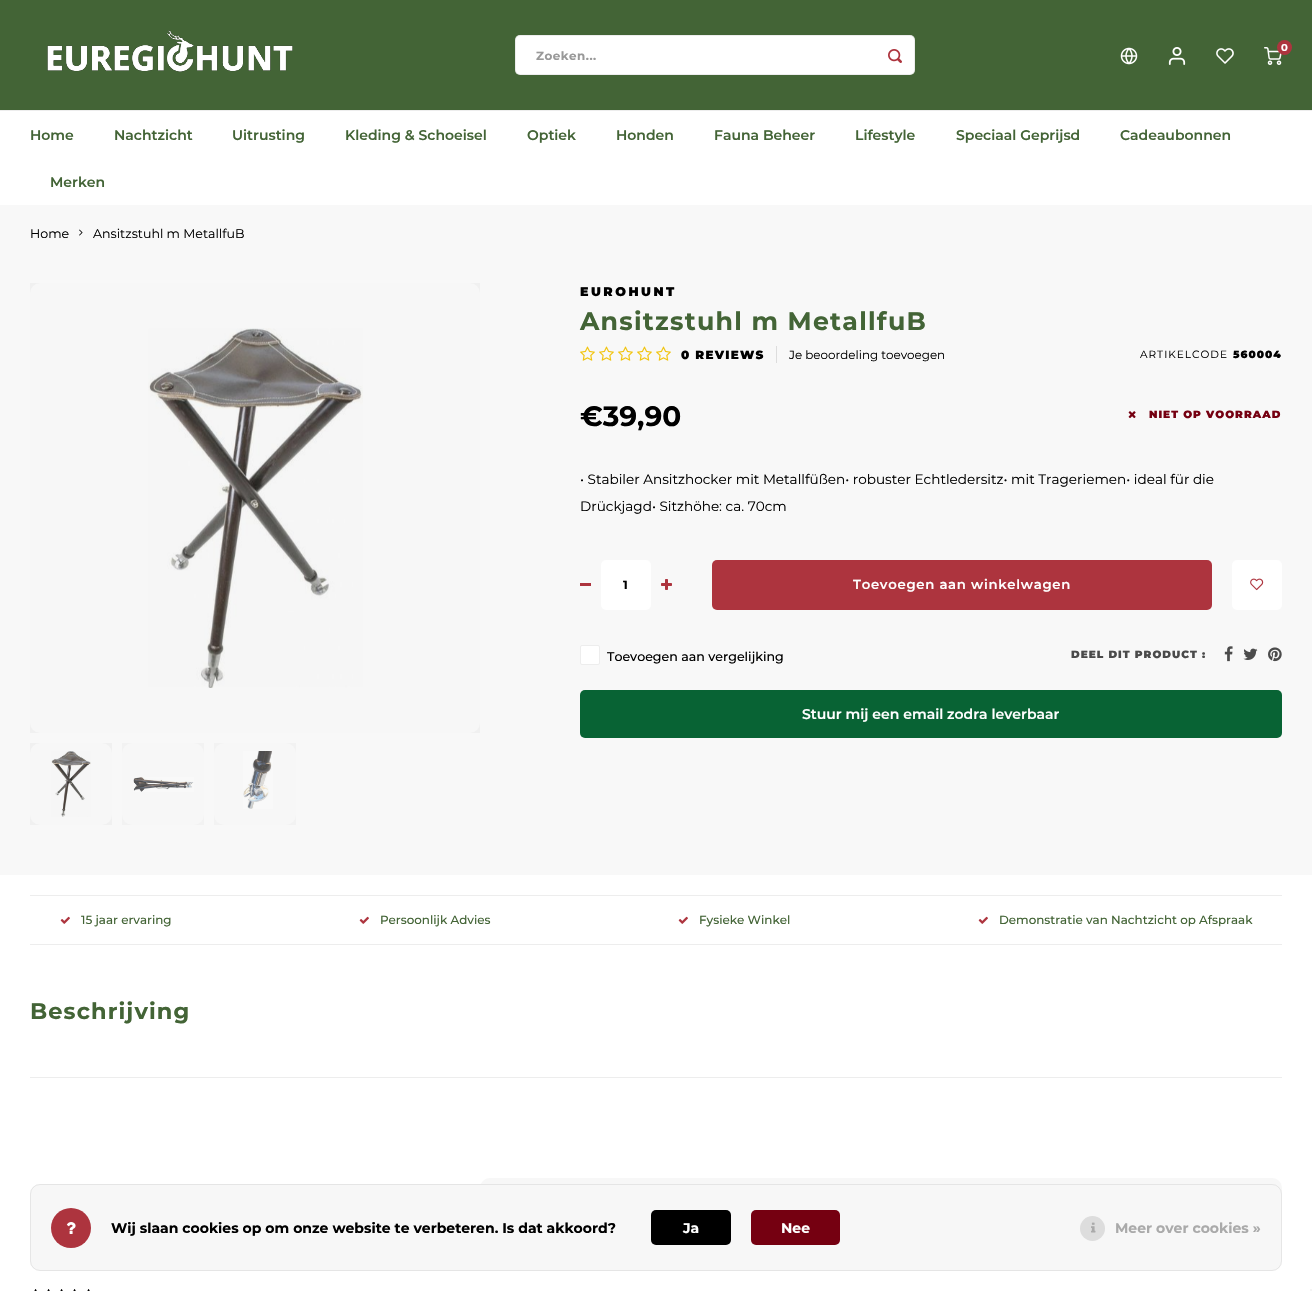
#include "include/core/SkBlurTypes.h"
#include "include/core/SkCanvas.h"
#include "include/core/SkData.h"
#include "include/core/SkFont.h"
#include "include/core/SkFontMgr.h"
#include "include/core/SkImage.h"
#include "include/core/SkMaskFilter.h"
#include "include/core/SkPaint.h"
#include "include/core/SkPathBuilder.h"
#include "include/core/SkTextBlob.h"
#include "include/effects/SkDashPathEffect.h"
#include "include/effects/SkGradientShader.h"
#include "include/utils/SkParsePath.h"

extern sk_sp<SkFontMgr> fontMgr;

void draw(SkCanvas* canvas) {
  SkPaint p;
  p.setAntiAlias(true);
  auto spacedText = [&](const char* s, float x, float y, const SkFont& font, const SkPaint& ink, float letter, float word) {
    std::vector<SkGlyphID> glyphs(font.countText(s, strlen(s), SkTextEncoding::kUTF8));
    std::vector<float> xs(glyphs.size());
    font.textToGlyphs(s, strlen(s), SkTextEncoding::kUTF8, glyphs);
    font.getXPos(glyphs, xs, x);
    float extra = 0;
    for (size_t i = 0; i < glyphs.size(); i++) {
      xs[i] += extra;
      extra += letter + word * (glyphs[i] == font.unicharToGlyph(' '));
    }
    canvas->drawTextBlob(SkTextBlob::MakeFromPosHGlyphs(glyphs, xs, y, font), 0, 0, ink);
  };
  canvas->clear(SK_ColorWHITE);
  p.setColor(SkColorSetRGB(67, 100, 54));
  canvas->drawRect(SkRect::MakeLTRB(0, 0, 1312, 110), p);
  canvas->drawImageRect(SkImages::DeferredFromEncodedData(SkData::MakeFromFileName("images/1.png")), SkRect::MakeLTRB(47, 30, 293, 72), SkSamplingOptions());
  canvas->drawImageRect(SkImages::DeferredFromEncodedData(SkData::MakeFromFileName("images/2.png")), SkRect::MakeLTRB(1120, 47, 1138, 65), SkSamplingOptions());
  canvas->drawImageRect(SkImages::DeferredFromEncodedData(SkData::MakeFromFileName("images/3.png")), SkRect::MakeLTRB(1168, 47, 1186, 65), SkSamplingOptions());
  canvas->drawImageRect(SkImages::DeferredFromEncodedData(SkData::MakeFromFileName("images/4.png")), SkRect::MakeLTRB(1216, 48, 1234, 64), SkSamplingOptions());
  canvas->drawImageRect(SkImages::DeferredFromEncodedData(SkData::MakeFromFileName("images/5.png")), SkRect::MakeLTRB(1264, 47, 1282, 65), SkSamplingOptions());
  p.setColor(SkColorSetRGB(173, 52, 62));
  canvas->drawCircle(1284.5f, 47.5f, 7.5f, p);
  p.setColor(SK_ColorWHITE);
  canvas->drawRoundRect(SkRect::MakeLTRB(515, 35, 915, 75), 5, 5, p);
  p.setStyle(SkPaint::kStroke_Style);
  p.setStrokeWidth(1);
  p.setColor(SkColorSetARGB(18, 0, 0, 0));
  canvas->drawRoundRect(SkRect::MakeLTRB(515.5f, 35.5f, 914.5f, 74.5f), 4.5f, 4.5f, p);
  canvas->drawImageRect(SkImages::DeferredFromEncodedData(SkData::MakeFromFileName("images/6.png")), SkRect::MakeLTRB(888, 49, 902, 63), SkSamplingOptions());
  p.setStyle(SkPaint::kFill_Style);
  p.setColor(SkColorSetRGB(237, 237, 237));
  canvas->drawRect(SkRect::MakeLTRB(0, 110, 1312, 111), p);
  p.setColor(SkColorSetRGB(248, 248, 248));
  canvas->drawRect(SkRect::MakeLTRB(0, 205, 1312, 875), p);
  canvas->drawImageRect(SkImages::DeferredFromEncodedData(SkData::MakeFromFileName("images/7.png")), SkRect::MakeLTRB(79, 229, 83, 236), SkSamplingOptions());
  p.setColor(SK_ColorWHITE);
  canvas->drawRoundRect(SkRect::MakeLTRB(30, 283, 480, 733), 10, 10, p);
  canvas->drawImageRect(SkImages::DeferredFromEncodedData(SkData::MakeFromFileName("images/8.png")), SkRect::MakeLTRB(148, 328, 363, 688), SkSamplingOptions());
  p.setColor(SkColorSetARGB(8, 0, 0, 0));
  canvas->drawRect(SkRect::MakeLTRB(30, 283, 480, 733), p);
  p.setColor(SK_ColorWHITE);
  canvas->drawRoundRect(SkRect::MakeLTRB(30, 743, 112, 825), 10, 10, p);
  canvas->drawImageRect(SkImages::DeferredFromEncodedData(SkData::MakeFromFileName("images/9.png")), SkRect::MakeLTRB(51, 751, 91, 817), SkSamplingOptions());
  p.setColor(SkColorSetARGB(8, 0, 0, 0));
  canvas->drawRect(SkRect::MakeLTRB(30, 743, 112, 825), p);
  p.setColor(SkColorSetRGB(253, 253, 253));
  canvas->drawRoundRect(SkRect::MakeLTRB(122, 743, 204, 825), 10, 10, p);
  canvas->drawImageRect(SkImages::DeferredFromEncodedData(SkData::MakeFromFileName("images/10.png")), SkRect::MakeLTRB(133, 777, 194, 792), SkSamplingOptions());
  p.setColor(SkColorSetARGB(8, 74, 74, 74));
  canvas->drawRect(SkRect::MakeLTRB(122, 743, 204, 825), p);
  p.setColor(SkColorSetRGB(253, 253, 253));
  canvas->drawRoundRect(SkRect::MakeLTRB(214, 743, 296, 825), 10, 10, p);
  canvas->drawImageRect(SkImages::DeferredFromEncodedData(SkData::MakeFromFileName("images/11.png")), SkRect::MakeLTRB(243, 751, 273, 809), SkSamplingOptions());
  p.setColor(SkColorSetARGB(8, 74, 74, 74));
  canvas->drawRect(SkRect::MakeLTRB(214, 743, 296, 825), p);
  canvas->drawImageRect(SkImages::DeferredFromEncodedData(SkData::MakeFromFileName("images/12.png")), SkRect::MakeLTRB(580, 346, 595, 361), SkSamplingOptions());
  canvas->drawImageRect(SkImages::DeferredFromEncodedData(SkData::MakeFromFileName("images/12.png")), SkRect::MakeLTRB(599, 346, 614, 361), SkSamplingOptions());
  canvas->drawImageRect(SkImages::DeferredFromEncodedData(SkData::MakeFromFileName("images/12.png")), SkRect::MakeLTRB(618, 346, 633, 361), SkSamplingOptions());
  canvas->drawImageRect(SkImages::DeferredFromEncodedData(SkData::MakeFromFileName("images/12.png")), SkRect::MakeLTRB(637, 346, 652, 361), SkSamplingOptions());
  canvas->drawImageRect(SkImages::DeferredFromEncodedData(SkData::MakeFromFileName("images/12.png")), SkRect::MakeLTRB(656, 346, 671, 361), SkSamplingOptions());
  p.setColor(SkColorSetRGB(221, 221, 221));
  canvas->drawRect(SkRect::MakeLTRB(776, 346, 777, 363), p);
  canvas->drawImageRect(SkImages::DeferredFromEncodedData(SkData::MakeFromFileName("images/13.png")), SkRect::MakeLTRB(1128, 411, 1136, 419), SkSamplingOptions());
  p.setColor(SkColorSetRGB(173, 52, 62));
  canvas->drawRect(SkRect::MakeLTRB(580, 583, 591, 586), p);
  p.setColor(SK_ColorWHITE);
  canvas->drawRoundRect(SkRect::MakeLTRB(601, 560, 651, 610), 5, 5, p);
  canvas->drawImageRect(SkImages::DeferredFromEncodedData(SkData::MakeFromFileName("images/14.png")), SkRect::MakeLTRB(661, 579, 672, 590), SkSamplingOptions());
  p.setColor(SkColorSetRGB(173, 52, 62));
  canvas->drawRoundRect(SkRect::MakeLTRB(712, 560, 1212, 610), 5, 5, p);
  p.setColor(SK_ColorWHITE);
  canvas->drawRoundRect(SkRect::MakeLTRB(1232, 560, 1282, 610), 5, 5, p);
  canvas->drawImageRect(SkImages::DeferredFromEncodedData(SkData::MakeFromFileName("images/15.png")), SkRect::MakeLTRB(1250, 578, 1264, 591), SkSamplingOptions());
  canvas->drawRoundRect(SkRect::MakeLTRB(580.5f, 645.5f, 599.5f, 664.5f), 1.5f, 1.5f, p);
  p.setStyle(SkPaint::kStroke_Style);
  p.setColor(SkColorSetRGB(237, 237, 237));
  canvas->drawRoundRect(SkRect::MakeLTRB(580.5f, 645.5f, 599.5f, 664.5f), 1.5f, 1.5f, p);
  canvas->drawImageRect(SkImages::DeferredFromEncodedData(SkData::MakeFromFileName("images/16.png")), SkRect::MakeLTRB(1224, 646, 1233, 662), SkSamplingOptions());
  canvas->drawImageRect(SkImages::DeferredFromEncodedData(SkData::MakeFromFileName("images/17.png")), SkRect::MakeLTRB(1243, 648, 1258, 660), SkSamplingOptions());
  canvas->drawImageRect(SkImages::DeferredFromEncodedData(SkData::MakeFromFileName("images/18.png")), SkRect::MakeLTRB(1268, 647, 1282, 662), SkSamplingOptions());
  p.setStyle(SkPaint::kFill_Style);
  p.setColor(SkColorSetRGB(8, 99, 52));
  canvas->drawRoundRect(SkRect::MakeLTRB(580, 690, 1282, 738), 5, 5, p);
  p.setColor(SkColorSetRGB(237, 237, 237));
  canvas->drawRect(SkRect::MakeLTRB(30, 895, 1282, 896), p);
  canvas->drawRect(SkRect::MakeLTRB(30, 944, 1282, 945), p);
  canvas->drawImageRect(SkImages::DeferredFromEncodedData(SkData::MakeFromFileName("images/19.png")), SkRect::MakeLTRB(60, 916, 70, 924), SkSamplingOptions());
  canvas->drawImageRect(SkImages::DeferredFromEncodedData(SkData::MakeFromFileName("images/19.png")), SkRect::MakeLTRB(359, 916, 369, 924), SkSamplingOptions());
  canvas->drawImageRect(SkImages::DeferredFromEncodedData(SkData::MakeFromFileName("images/19.png")), SkRect::MakeLTRB(678, 916, 688, 924), SkSamplingOptions());
  canvas->drawImageRect(SkImages::DeferredFromEncodedData(SkData::MakeFromFileName("images/19.png")), SkRect::MakeLTRB(978, 916, 988, 924), SkSamplingOptions());
  canvas->drawRect(SkRect::MakeLTRB(30, 1077, 1282, 1078), p);
  p.setColor(SkColorSetRGB(247, 247, 247));
  canvas->drawRoundRect(SkRect::MakeLTRB(480, 1178, 1282, 1258), 10, 10, p);
  canvas->drawImageRect(SkImages::DeferredFromEncodedData(SkData::MakeFromFileName("images/20.png")), SkRect::MakeLTRB(34, 1289, 37, 1291), SkSamplingOptions());
  canvas->drawImageRect(SkImages::DeferredFromEncodedData(SkData::MakeFromFileName("images/20.png")), SkRect::MakeLTRB(47, 1289, 50, 1291), SkSamplingOptions());
  canvas->drawImageRect(SkImages::DeferredFromEncodedData(SkData::MakeFromFileName("images/20.png")), SkRect::MakeLTRB(60, 1289, 63, 1291), SkSamplingOptions());
  canvas->drawImageRect(SkImages::DeferredFromEncodedData(SkData::MakeFromFileName("images/20.png")), SkRect::MakeLTRB(73, 1289, 76, 1291), SkSamplingOptions());
  canvas->drawImageRect(SkImages::DeferredFromEncodedData(SkData::MakeFromFileName("images/20.png")), SkRect::MakeLTRB(87, 1289, 90, 1291), SkSamplingOptions());
  canvas->drawRoundRect(SkRect::MakeLTRB(30, 1184, 1282, 1271), 10, 10, p);
  p.setStyle(SkPaint::kStroke_Style);
  p.setColor(SkColorSetARGB(18, 0, 0, 0));
  canvas->drawRoundRect(SkRect::MakeLTRB(30.5f, 1184.5f, 1281.5f, 1270.5f), 9.5f, 9.5f, p);
  p.setStyle(SkPaint::kFill_Style);
  p.setColor(SkColorSetRGB(173, 52, 62));
  canvas->drawCircle(71, 1228, 20, p);
  canvas->drawImageRect(SkImages::DeferredFromEncodedData(SkData::MakeFromFileName("images/21.png")), SkRect::MakeLTRB(66, 1222, 76, 1234), SkSamplingOptions());
  p.setColor(SK_ColorBLACK);
  canvas->drawRoundRect(SkRect::MakeLTRB(651, 1210, 731, 1245), 5, 5, p);
  p.setColor(SkColorSetRGB(117, 0, 17));
  canvas->drawRoundRect(SkRect::MakeLTRB(751, 1210, 840, 1245), 5, 5, p);
  p.setColor(SkColorSetRGB(221, 221, 221));
  canvas->drawCircle(1092.5f, 1228.5f, 12.5f, p);
  canvas->drawImageRect(SkImages::DeferredFromEncodedData(SkData::MakeFromFileName("images/22.png")), SkRect::MakeLTRB(1091, 1222, 1096, 1233), SkSamplingOptions());
  p.setColor(SkColorSetRGB(245, 245, 245));
  canvas->drawRect(SkRect::MakeLTRB(1310, 1289, 1312, 1291), p);
  SkFont font1(fontMgr->matchFamilyStyle("Montserrat", SkFontStyle::Bold()), 10);
  font1.setSubpixel(true);
  p.setColor(SK_ColorWHITE);
  canvas->drawString("0", 1281, 51, font1, p);
  SkFont font2(fontMgr->matchFamilyStyle("Montserrat", SkFontStyle::Bold()), 11.9f);
  font2.setSubpixel(true);
  p.setColor(SkColorSetRGB(153, 153, 153));
  spacedText("Zoeken...", 536, 60, font2, p, 0.5f, 0);
  SkFont font3(fontMgr->matchFamilyStyle("Montserrat", SkFontStyle(600, SkFontStyle::kNormal_Width, SkFontStyle::kUpright_Slant)), 14);
  font3.setSubpixel(true);
  p.setColor(SkColorSetRGB(67, 100, 54));
  canvas->drawString("Home", 30, 140, font3, p);
  canvas->drawString("Nachtzicht", 114, 140, font3, p);
  canvas->drawString("Uitrusting", 232, 140, font3, p);
  canvas->drawString("Kleding & Schoeisel", 345, 140, font3, p);
  canvas->drawString("Optiek", 527, 140, font3, p);
  canvas->drawString("Honden", 616, 140, font3, p);
  canvas->drawString("Fauna Beheer", 714, 140, font3, p);
  canvas->drawString("Lifestyle", 855, 140, font3, p);
  canvas->drawString("Speciaal Geprijsd", 956, 140, font3, p);
  canvas->drawString("Cadeaubonnen", 1120, 140, font3, p);
  canvas->drawString("Merken", 50, 187, font3, p);
  SkFont font4(fontMgr->matchFamilyStyle("Montserrat", SkFontStyle::Normal()), 12.6f);
  font4.setSubpixel(true);
  p.setColor(SK_ColorBLACK);
  canvas->drawString("Home", 30, 238, font4, p);
  canvas->drawString("Ansitzstuhl m MetallfuB", 93, 238, font4, p);
  SkFont font5(fontMgr->matchFamilyStyle("Montserrat", SkFontStyle(900, SkFontStyle::kNormal_Width, SkFontStyle::kUpright_Slant)), 12.6f);
  font5.setSubpixel(true);
  spacedText("EUROHUNT", 580, 296, font5, p, 2.5f, 0);
  SkFont font6(fontMgr->matchFamilyStyle("Montserrat", SkFontStyle::Bold()), 25.25f);
  font6.setSubpixel(true);
  p.setColor(SkColorSetRGB(67, 100, 54));
  spacedText("Ansitzstuhl m MetallfuB", 580, 330, font6, p, 1.25f, 0);
  SkFont font7(fontMgr->matchFamilyStyle("Montserrat", SkFontStyle(900, SkFontStyle::kNormal_Width, SkFontStyle::kUpright_Slant)), 11.9f);
  font7.setSubpixel(true);
  p.setColor(SK_ColorBLACK);
  spacedText("0 REVIEWS", 681, 359, font7, p, 1.25f, 0);
  SkFont font8(fontMgr->matchFamilyStyle("Montserrat", SkFontStyle::Normal()), 11.9f);
  font8.setSubpixel(true);
  canvas->drawString("Je beoordeling toevoegen", 789, 359, font8, p);
  SkFont font9(fontMgr->matchFamilyStyle("Montserrat", SkFontStyle::Normal()), 10.5f);
  font9.setSubpixel(true);
  spacedText("ARTIKELCODE", 1140, 358, font9, p, 1, 0);
  SkFont font10(fontMgr->matchFamilyStyle("Montserrat", SkFontStyle(900, SkFontStyle::kNormal_Width, SkFontStyle::kUpright_Slant)), 10.5f);
  font10.setSubpixel(true);
  spacedText("560004", 1233, 358, font10, p, 1, 0);
  SkFont font11(fontMgr->matchFamilyStyle("Montserrat", SkFontStyle::Bold()), 28);
  font11.setSubpixel(true);
  canvas->drawString("€39,90", 580, 426, font11, p);
  p.setColor(SkColorSetRGB(117, 0, 17));
  spacedText("NIET OP VOORRAAD", 1149, 418, font10, p, 1, 0);
  SkFont font12(fontMgr->matchFamilyStyle("Montserrat", SkFontStyle::Normal()), 13.6f);
  font12.setSubpixel(true);
  p.setColor(SK_ColorBLACK);
  canvas->drawString("• Stabiler Ansitzhocker mit Metallfüßen• robuster Echtledersitz• mit Trageriemen• ideal für die", 580, 484, font12, p);
  canvas->drawString("Drückjagd• Sitzhöhe: ca. 70cm", 580, 511, font12, p);
  spacedText("1", 623, 589, font2, p, 0.5f, 0);
  SkFont font13(fontMgr->matchFamilyStyle("Montserrat", SkFontStyle(600, SkFontStyle::kNormal_Width, SkFontStyle::kUpright_Slant)), 13.25f);
  font13.setSubpixel(true);
  p.setColor(SK_ColorWHITE);
  spacedText("Toevoegen aan winkelwagen", 853, 589, font13, p, 0.7f, 0);
  SkFont font14(fontMgr->matchFamilyStyle("Montserrat", SkFontStyle(500, SkFontStyle::kNormal_Width, SkFontStyle::kUpright_Slant)), 12.6f);
  font14.setSubpixel(true);
  p.setColor(SK_ColorBLACK);
  canvas->drawString("Toevoegen aan vergelijking", 607, 661, font14, p);
  p.setColor(SkColorSetRGB(74, 74, 74));
  spacedText("DEEL DIT PRODUCT :", 1071, 658, font10, p, 1, 0);
  p.setColor(SK_ColorWHITE);
  canvas->drawString("Stuur mij een email zodra leverbaar", 802, 719, font3, p);
  SkFont font15(fontMgr->matchFamilyStyle("Montserrat", SkFontStyle(500, SkFontStyle::kNormal_Width, SkFontStyle::kUpright_Slant)), 11.9f);
  font15.setSubpixel(true);
  p.setColor(SkColorSetRGB(67, 100, 54));
  canvas->drawString("15 jaar ervaring", 81, 924, font15, p);
  canvas->drawString("Persoonlijk Advies", 380, 924, font15, p);
  canvas->drawString("Fysieke Winkel", 699, 924, font15, p);
  canvas->drawString("Demonstratie van Nachtzicht op Afspraak", 999, 924, font15, p);
  SkFont font16(fontMgr->matchFamilyStyle("Montserrat", SkFontStyle::Bold()), 22.5f);
  font16.setSubpixel(true);
  spacedText("Beschrijving", 30, 1019, font16, p, 1.1f, 0);
  SkFont font17(fontMgr->matchFamilyStyle("Montserrat", SkFontStyle::Bold()), 14);
  font17.setSubpixel(true);
  p.setColor(SK_ColorBLACK);
  canvas->drawString("Wij slaan cookies op om onze website te verbeteren. Is dat akkoord?", 111, 1233, font17, p);
  p.setColor(SK_ColorWHITE);
  canvas->drawString("Ja", 683, 1233, font17, p);
  canvas->drawString("Nee", 781, 1233, font17, p);
  p.setColor(SkColorSetRGB(170, 170, 170));
  canvas->drawString("Meer over cookies »", 1115, 1233, font17, p);
}
